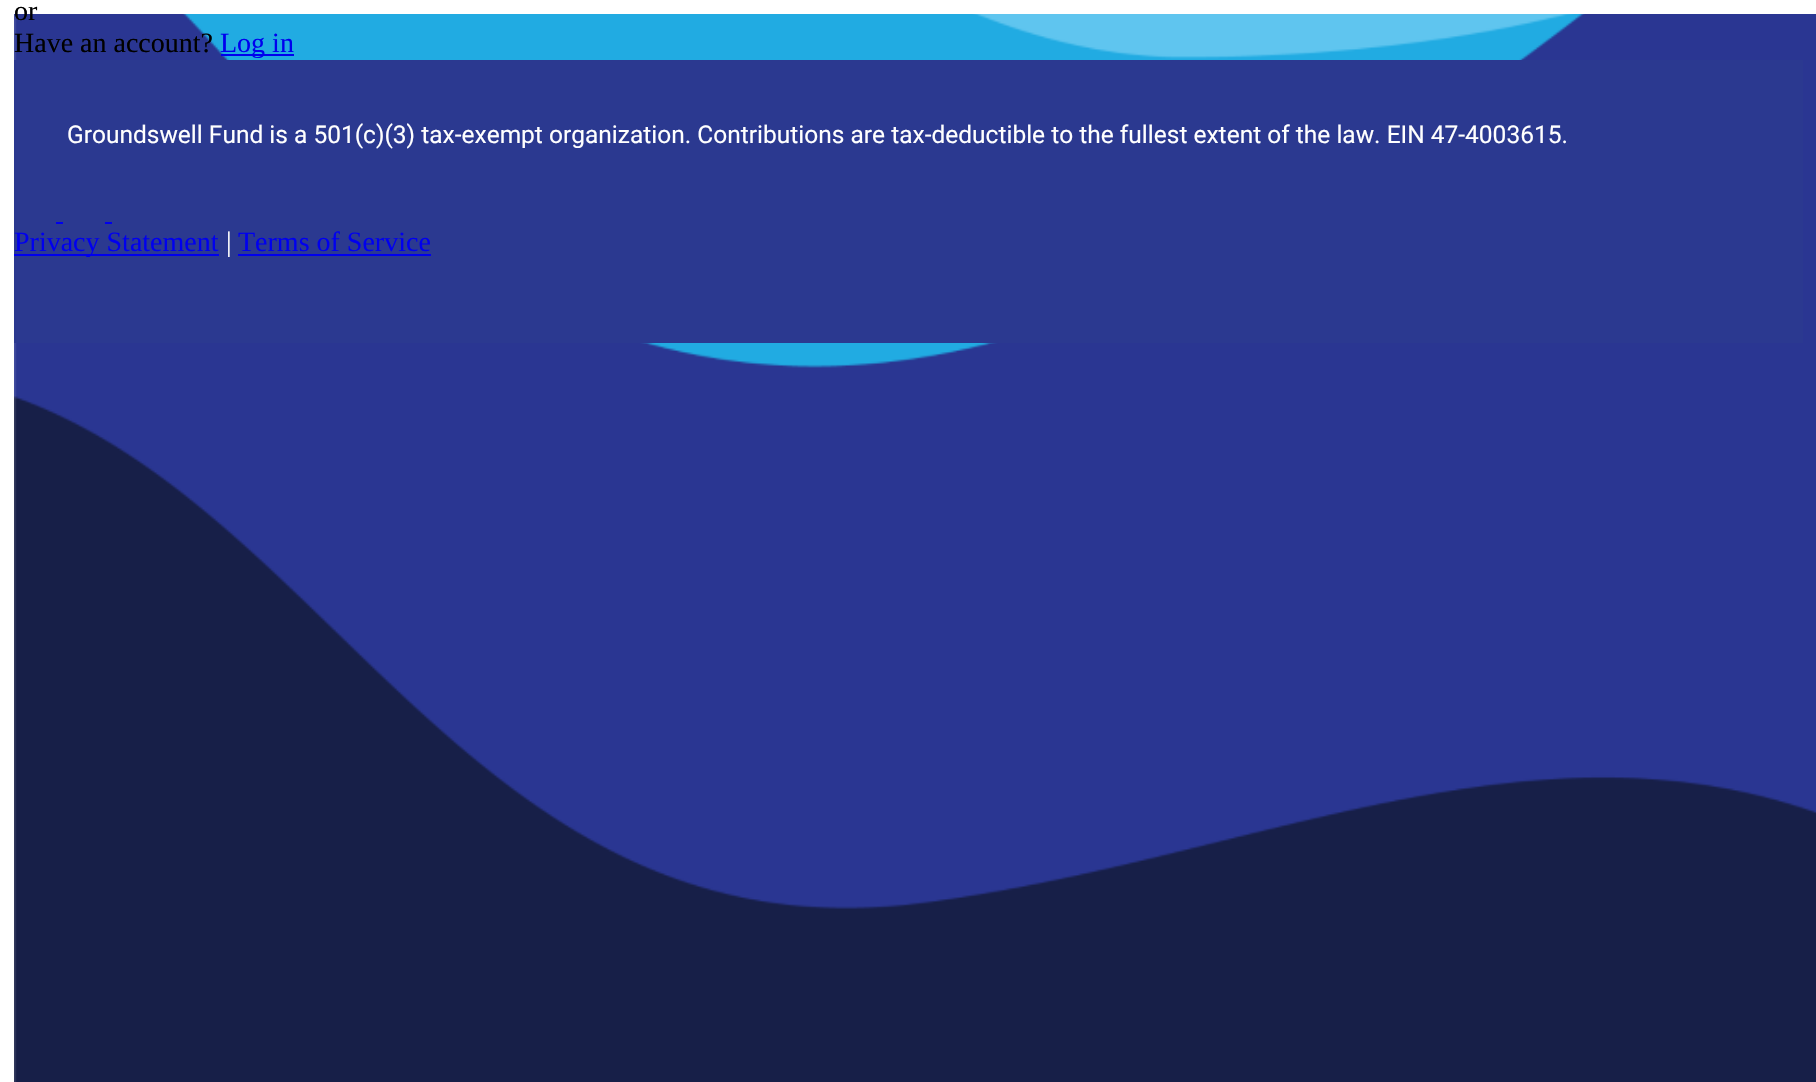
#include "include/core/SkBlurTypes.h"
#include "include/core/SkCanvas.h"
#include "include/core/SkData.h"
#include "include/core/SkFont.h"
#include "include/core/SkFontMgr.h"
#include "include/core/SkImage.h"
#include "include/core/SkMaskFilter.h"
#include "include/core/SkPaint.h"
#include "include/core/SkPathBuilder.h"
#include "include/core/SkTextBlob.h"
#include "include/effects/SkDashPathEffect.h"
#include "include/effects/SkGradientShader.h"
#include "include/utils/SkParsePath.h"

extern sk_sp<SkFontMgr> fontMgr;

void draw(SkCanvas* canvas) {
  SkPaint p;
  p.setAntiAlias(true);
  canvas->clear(SK_ColorWHITE);
  canvas->drawImageRect(SkImages::DeferredFromEncodedData(SkData::MakeFromFileName("images/1.png")), SkRect::MakeLTRB(14, 14, 1816, 1082), SkSamplingOptions());
  p.setColor(SkColorSetRGB(0, 0, 238));
  canvas->drawRect(SkRect::MakeLTRB(221, 54, 294, 56), p);
  p.setColor(SkColorSetRGB(43, 57, 144));
  canvas->drawRect(SkRect::MakeLTRB(14, 60, 1803, 343), p);
  p.setColor(SkColorSetRGB(0, 0, 238));
  canvas->drawRect(SkRect::MakeLTRB(56, 222, 63, 224), p);
  canvas->drawRect(SkRect::MakeLTRB(105, 222, 112, 224), p);
  canvas->drawRect(SkRect::MakeLTRB(14, 254, 219, 256), p);
  canvas->drawRect(SkRect::MakeLTRB(238, 254, 431, 256), p);
  SkFont font1(fontMgr->matchFamilyStyle("Liberation Serif", SkFontStyle::Normal()), 28);
  font1.setSubpixel(true);
  p.setColor(SK_ColorBLACK);
  canvas->drawString("or", 14, 20, font1, p);
  canvas->drawString("Have an account?", 14, 52, font1, p);
  p.setColor(SkColorSetRGB(0, 0, 238));
  canvas->drawString("Log in", 220, 52, font1, p);
  SkFont font2(fontMgr->matchFamilyStyle("Roboto", SkFontStyle::Normal()), 24.5f);
  font2.setSubpixel(true);
  p.setColor(SK_ColorWHITE);
  canvas->drawString("Groundswell Fund is a 501(c)(3) tax-exempt organization. Contributions are tax-deductible to the fullest extent of the law. EIN 47-4003615.", 67, 143, font2, p);
  p.setColor(SkColorSetRGB(0, 0, 238));
  canvas->drawString("Privacy Statement", 14, 251, font1, p);
  p.setColor(SK_ColorWHITE);
  canvas->drawString("|", 226, 251, font1, p);
  p.setColor(SkColorSetRGB(0, 0, 238));
  canvas->drawString("Terms of Service", 238, 251, font1, p);
}
